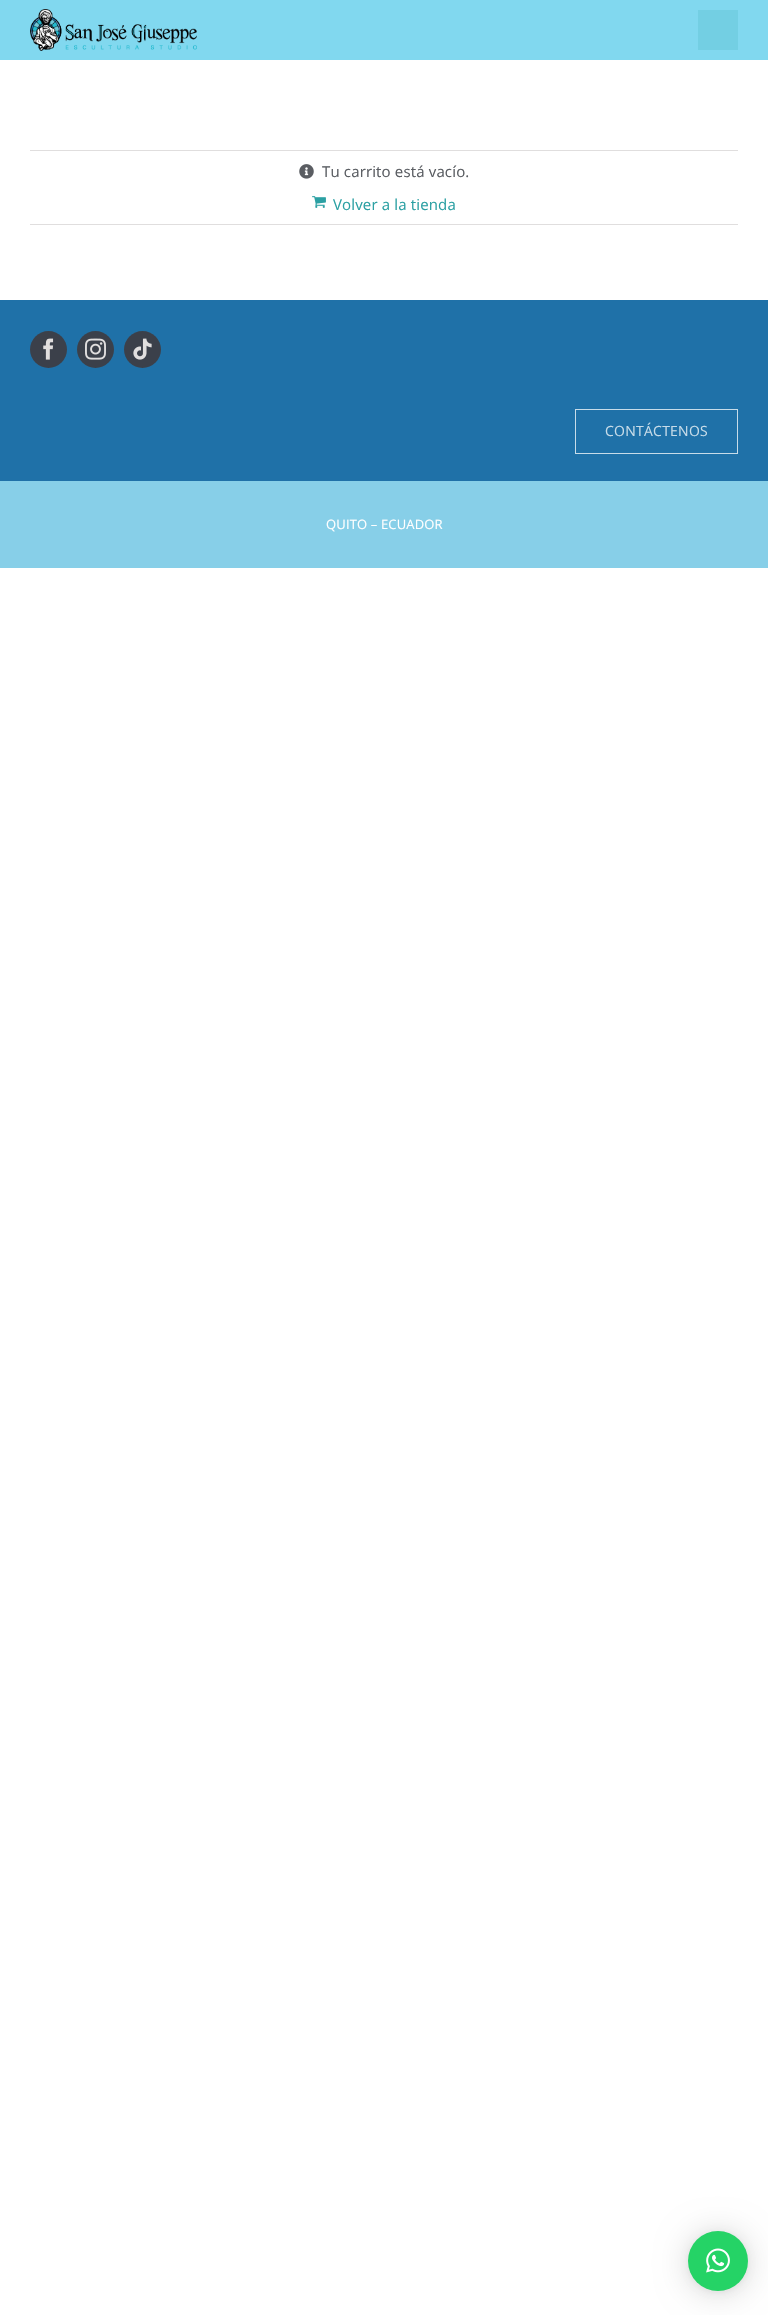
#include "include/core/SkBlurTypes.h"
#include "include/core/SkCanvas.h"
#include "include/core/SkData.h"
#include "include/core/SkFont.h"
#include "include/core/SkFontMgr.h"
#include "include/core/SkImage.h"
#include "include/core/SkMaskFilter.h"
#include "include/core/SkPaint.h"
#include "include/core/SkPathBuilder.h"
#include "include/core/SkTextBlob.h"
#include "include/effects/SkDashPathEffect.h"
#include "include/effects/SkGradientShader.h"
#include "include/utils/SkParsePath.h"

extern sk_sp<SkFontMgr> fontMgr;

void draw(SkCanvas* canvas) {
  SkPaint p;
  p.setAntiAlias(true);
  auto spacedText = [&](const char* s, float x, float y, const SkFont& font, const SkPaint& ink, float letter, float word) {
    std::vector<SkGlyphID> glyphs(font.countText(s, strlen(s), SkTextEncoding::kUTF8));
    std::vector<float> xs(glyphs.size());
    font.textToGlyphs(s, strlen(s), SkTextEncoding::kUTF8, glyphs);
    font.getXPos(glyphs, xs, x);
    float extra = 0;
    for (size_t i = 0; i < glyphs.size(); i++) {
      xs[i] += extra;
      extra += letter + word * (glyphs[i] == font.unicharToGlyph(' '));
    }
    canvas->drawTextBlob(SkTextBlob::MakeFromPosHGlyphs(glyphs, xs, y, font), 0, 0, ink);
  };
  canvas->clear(SK_ColorWHITE);
  p.setColor(SkColorSetRGB(129, 216, 239));
  canvas->drawRect(SkRect::MakeLTRB(0, 0, 768, 60), p);
  canvas->drawImageRect(SkImages::DeferredFromEncodedData(SkData::MakeFromFileName("images/1.png")), SkRect::MakeLTRB(30, 9, 197, 51), SkSamplingOptions());
  p.setColor(SkColorSetRGB(115, 207, 227));
  canvas->drawRect(SkRect::MakeLTRB(698, 10, 738, 50), p);
  p.setColor(SkColorSetRGB(224, 222, 222));
  canvas->drawRect(SkRect::MakeLTRB(30, 150, 738, 151), p);
  canvas->drawImageRect(SkImages::DeferredFromEncodedData(SkData::MakeFromFileName("images/2.png")), SkRect::MakeLTRB(299, 164, 314, 179), SkSamplingOptions());
  canvas->drawRect(SkRect::MakeLTRB(30, 224, 738, 225), p);
  canvas->drawImageRect(SkImages::DeferredFromEncodedData(SkData::MakeFromFileName("images/3.png")), SkRect::MakeLTRB(312, 196, 326, 208), SkSamplingOptions());
  p.setColor(SkColorSetRGB(31, 113, 168));
  canvas->drawRect(SkRect::MakeLTRB(0, 300, 768, 481), p);
  p.setColor(SkColorSetRGB(59, 64, 74));
  canvas->drawCircle(48.5f, 349.5f, 18.5f, p);
  canvas->drawImageRect(SkImages::DeferredFromEncodedData(SkData::MakeFromFileName("images/4.png")), SkRect::MakeLTRB(43, 338, 54, 360), SkSamplingOptions());
  canvas->drawCircle(95.5f, 349.5f, 18.5f, p);
  canvas->drawImageRect(SkImages::DeferredFromEncodedData(SkData::MakeFromFileName("images/5.png")), SkRect::MakeLTRB(85, 338, 106, 360), SkSamplingOptions());
  canvas->drawCircle(142.5f, 349.5f, 18.5f, p);
  canvas->drawImageRect(SkImages::DeferredFromEncodedData(SkData::MakeFromFileName("images/6.png")), SkRect::MakeLTRB(133, 338, 152, 360), SkSamplingOptions());
  p.setStyle(SkPaint::kStroke_Style);
  p.setStrokeWidth(1);
  p.setColor(SkColorSetRGB(199, 220, 233));
  canvas->drawRect(SkRect::MakeLTRB(575.5f, 409.5f, 737.5f, 453.5f), p);
  p.setStyle(SkPaint::kFill_Style);
  p.setColor(SkColorSetRGB(135, 207, 232));
  canvas->drawRect(SkRect::MakeLTRB(0, 481, 768, 568), p);
  p.setColor(SkColorSetARGB(41, 0, 0, 0));
  p.setMaskFilter(SkMaskFilter::MakeBlur(kNormal_SkBlurStyle, 16));
  canvas->drawRoundRect(SkRect::MakeLTRB(688, 2233, 748, 2293), 30, 30, p);
  p.setMaskFilter(nullptr);
  p.setColor(SkColorSetARGB(15, 0, 0, 0));
  p.setMaskFilter(SkMaskFilter::MakeBlur(kNormal_SkBlurStyle, 3));
  canvas->drawRoundRect(SkRect::MakeLTRB(688, 2232, 748, 2292), 30, 30, p);
  p.setMaskFilter(nullptr);
  p.setColor(SkColorSetRGB(37, 211, 102));
  canvas->drawCircle(718, 2261, 30, p);
  canvas->drawImageRect(SkImages::DeferredFromEncodedData(SkData::MakeFromFileName("images/7.png")), SkRect::MakeLTRB(706, 2248, 730, 2273), SkSamplingOptions());
  SkFont font1(fontMgr->matchFamilyStyle("Open Sans", SkFontStyle::Normal()), 15);
  font1.setSubpixel(true);
  p.setColor(SkColorSetRGB(90, 93, 98));
  spacedText("Tu carrito está vacío.", 322, 177, font1, p, 0.15f, 0);
  p.setColor(SkColorSetRGB(43, 160, 163));
  spacedText("Volver a la tienda", 333, 210, font1, p, 0.15f, 0);
  SkFont font2(fontMgr->matchFamilyStyle("Open Sans", SkFontStyle::Normal()), 14);
  font2.setSubpixel(true);
  p.setColor(SkColorSetRGB(199, 220, 233));
  spacedText("CONTÁCTENOS", 605, 436, font2, p, 0.25f, 0);
  SkFont font3(fontMgr->matchFamilyStyle("Open Sans", SkFontStyle::Normal()), 13);
  font3.setSubpixel(true);
  p.setColor(SK_ColorWHITE);
  spacedText("QUITO – ECUADOR", 326, 529, font3, p, 0.15f, 0);
}
